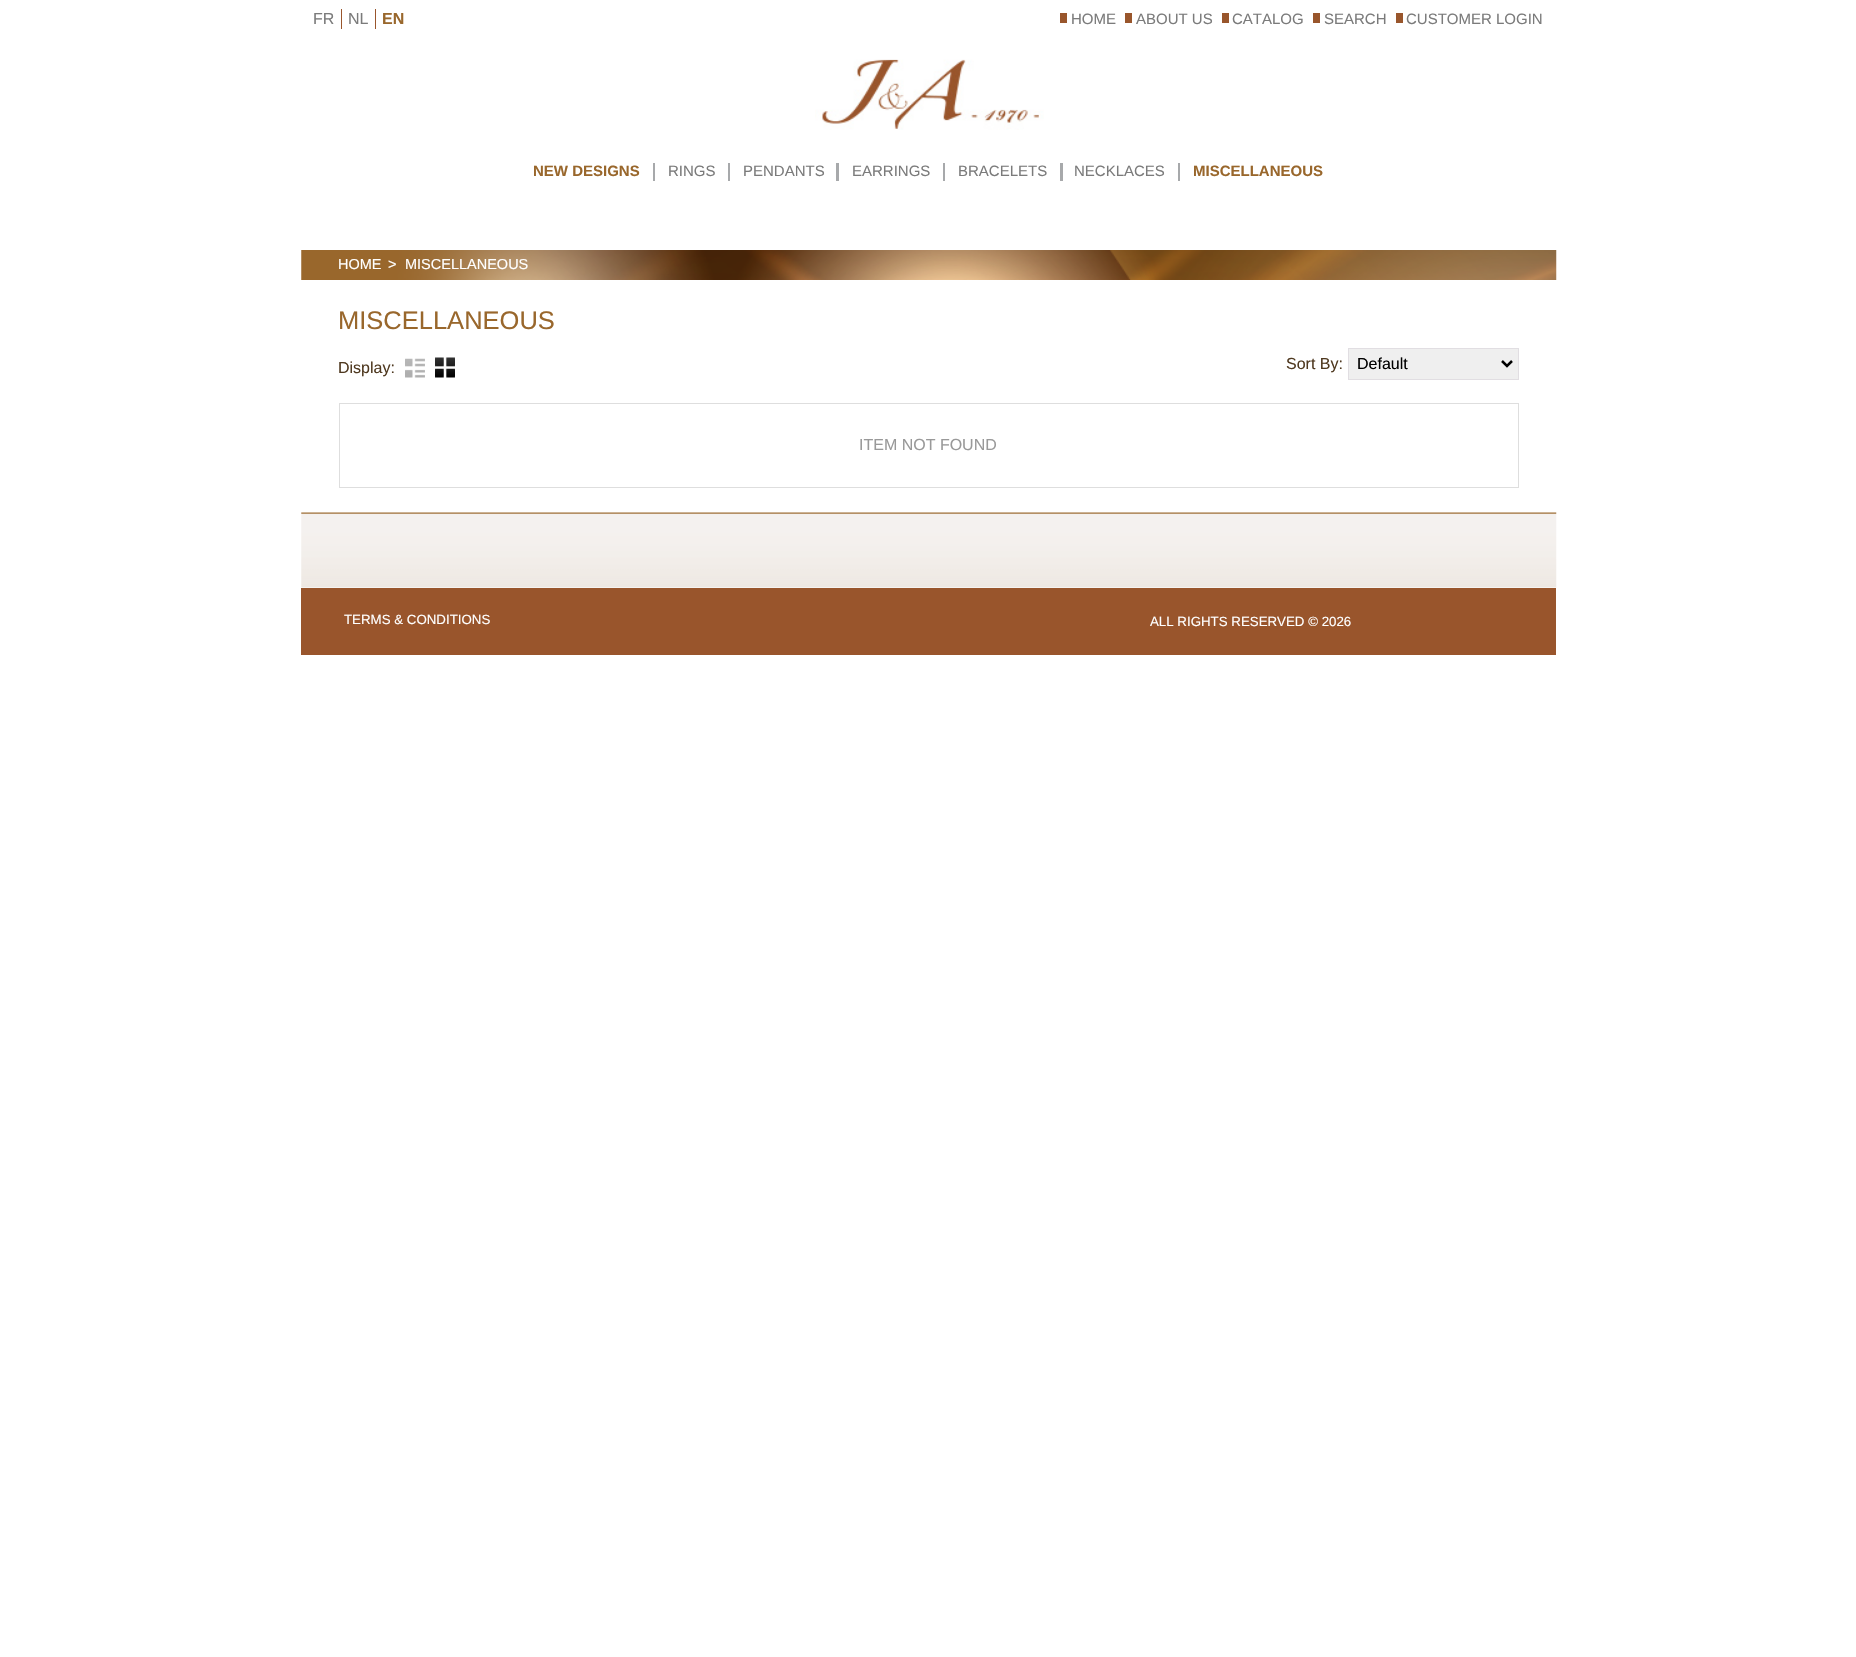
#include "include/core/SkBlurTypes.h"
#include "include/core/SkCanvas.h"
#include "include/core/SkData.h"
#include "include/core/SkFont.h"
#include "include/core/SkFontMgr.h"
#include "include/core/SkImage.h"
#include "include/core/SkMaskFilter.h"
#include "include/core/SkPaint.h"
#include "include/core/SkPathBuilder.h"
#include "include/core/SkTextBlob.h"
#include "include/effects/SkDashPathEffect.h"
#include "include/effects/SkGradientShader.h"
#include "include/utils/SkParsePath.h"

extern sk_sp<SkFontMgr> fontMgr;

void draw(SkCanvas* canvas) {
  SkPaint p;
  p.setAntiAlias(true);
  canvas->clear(SK_ColorWHITE);
  p.setColor(SkColorSetRGB(153, 85, 44));
  canvas->drawRect(SkRect::MakeLTRB(341, 9, 342, 29), p);
  canvas->drawRect(SkRect::MakeLTRB(375, 9, 376, 29), p);
  p.setColor(SkColorSetRGB(153, 86, 44));
  canvas->drawRect(SkRect::MakeLTRB(1060, 13, 1067, 23), p);
  canvas->drawRect(SkRect::MakeLTRB(1125, 13, 1132, 23), p);
  canvas->drawRect(SkRect::MakeLTRB(1222, 13, 1229, 23), p);
  canvas->drawRect(SkRect::MakeLTRB(1313, 13, 1320, 23), p);
  canvas->drawRect(SkRect::MakeLTRB(1396, 13, 1403, 23), p);
  canvas->drawImageRect(SkImages::DeferredFromEncodedData(SkData::MakeFromFileName("images/1.png")), SkRect::MakeLTRB(815, 59, 1044, 130), SkSamplingOptions());
  p.setColor(SkColorSetRGB(167, 169, 171));
  canvas->drawRect(SkRect::MakeLTRB(728, 163, 730, 181), p);
  canvas->drawRect(SkRect::MakeLTRB(653, 163, 655, 181), p);
  canvas->drawRect(SkRect::MakeLTRB(943, 163, 945, 181), p);
  canvas->drawRect(SkRect::MakeLTRB(836, 163, 839, 181), p);
  canvas->drawRect(SkRect::MakeLTRB(1178, 163, 1180, 181), p);
  canvas->drawRect(SkRect::MakeLTRB(1060, 163, 1063, 181), p);
  canvas->drawImageRect(SkImages::DeferredFromEncodedData(SkData::MakeFromFileName("images/2.png")), SkRect::MakeLTRB(301, 250, 1557, 280), SkSamplingOptions());
  canvas->drawImageRect(SkImages::DeferredFromEncodedData(SkData::MakeFromFileName("images/3.png")), SkRect::MakeLTRB(405, 358, 425, 378), SkSamplingOptions());
  canvas->drawImageRect(SkImages::DeferredFromEncodedData(SkData::MakeFromFileName("images/4.png")), SkRect::MakeLTRB(435, 357, 455, 378), SkSamplingOptions());
  p.setColor(SkColorSetRGB(239, 239, 239));
  canvas->drawRect(SkRect::MakeLTRB(1348.5f, 348.5f, 1518.5f, 379.5f), p);
  p.setStyle(SkPaint::kStroke_Style);
  p.setStrokeWidth(1);
  p.setColor(SkColorSetRGB(225, 222, 226));
  canvas->drawRect(SkRect::MakeLTRB(1348.5f, 348.5f, 1518.5f, 379.5f), p);
  p.setStrokeWidth(2.5f);
  p.setColor(SK_ColorBLACK);
  canvas->drawPath(SkPathBuilder().moveTo(1502, 361).lineTo(1507, 366).lineTo(1512, 361).detach(), p);
  p.setStrokeWidth(1);
  p.setColor(SkColorSetRGB(222, 222, 222));
  canvas->drawRect(SkRect::MakeLTRB(339.5f, 403.5f, 1518.5f, 487.5f), p);
  canvas->drawImageRect(SkImages::DeferredFromEncodedData(SkData::MakeFromFileName("images/5.png")), SkRect::MakeLTRB(301, 512, 1557, 588), SkSamplingOptions());
  p.setStyle(SkPaint::kFill_Style);
  p.setColor(SkColorSetRGB(153, 85, 44));
  canvas->drawRect(SkRect::MakeLTRB(301, 588, 1556, 655), p);
  SkFont font1(fontMgr->matchFamilyStyle("Liberation Sans", SkFontStyle::Normal()), 16);
  font1.setSubpixel(true);
  p.setColor(SkColorSetRGB(123, 123, 123));
  canvas->drawString("FR", 313, 24, font1, p);
  canvas->drawString("NL", 348, 24, font1, p);
  SkFont font2(fontMgr->matchFamilyStyle("Liberation Sans", SkFontStyle::Bold()), 16);
  font2.setSubpixel(true);
  p.setColor(SkColorSetRGB(153, 103, 44));
  canvas->drawString("EN", 382, 24, font2, p);
  SkFont font3(fontMgr->matchFamilyStyle("Liberation Sans", SkFontStyle::Normal()), 15);
  font3.setSubpixel(true);
  p.setColor(SkColorSetRGB(123, 123, 123));
  canvas->drawString("HOME", 1071, 24, font3, p);
  canvas->drawString("ABOUT US", 1136, 24, font3, p);
  canvas->drawString("CATALOG", 1232, 24, font3, p);
  canvas->drawString("SEARCH", 1324, 24, font3, p);
  canvas->drawString("CUSTOMER LOGIN", 1406, 24, font3, p);
  SkFont font4(fontMgr->matchFamilyStyle("Liberation Sans", SkFontStyle::Bold()), 15);
  font4.setSubpixel(true);
  p.setColor(SkColorSetRGB(153, 103, 44));
  canvas->drawString("NEW DESIGNS", 533, 176, font4, p);
  p.setColor(SkColorSetRGB(123, 123, 123));
  canvas->drawString("RINGS", 668, 176, font3, p);
  canvas->drawString("PENDANTS", 743, 176, font3, p);
  canvas->drawString("EARRINGS", 852, 176, font3, p);
  canvas->drawString("BRACELETS", 958, 176, font3, p);
  canvas->drawString("NECKLACES", 1074, 176, font3, p);
  p.setColor(SkColorSetRGB(153, 103, 44));
  canvas->drawString("MISCELLANEOUS", 1193, 176, font4, p);
  SkFont font5(fontMgr->matchFamilyStyle("Liberation Sans", SkFontStyle::Normal()), 14.5f);
  font5.setSubpixel(true);
  p.setColor(SK_ColorWHITE);
  canvas->drawString("HOME", 338, 269, font5, p);
  canvas->drawString(">", 388, 269, font5, p);
  canvas->drawString("MISCELLANEOUS", 405, 269, font5, p);
  SkFont font6(fontMgr->matchFamilyStyle("Liberation Sans", SkFontStyle::Normal()), 25.5f);
  font6.setSubpixel(true);
  p.setColor(SkColorSetRGB(153, 103, 44));
  canvas->drawString("MISCELLANEOUS", 338, 329, font6, p);
  p.setColor(SkColorSetRGB(79, 57, 32));
  canvas->drawString("Display:", 338, 373, font1, p);
  canvas->drawString("Sort By:", 1286, 369, font1, p);
  p.setColor(SK_ColorBLACK);
  canvas->drawString("Default", 1357, 369, font1, p);
  p.setColor(SkColorSetRGB(153, 153, 153));
  canvas->drawString("ITEM NOT FOUND", 859, 450, font1, p);
  SkFont font7(fontMgr->matchFamilyStyle("Liberation Sans", SkFontStyle::Normal()), 13.3f);
  font7.setSubpixel(true);
  p.setColor(SK_ColorWHITE);
  canvas->drawString("TERMS & CONDITIONS", 344, 624, font7, p);
  canvas->drawString("ALL RIGHTS RESERVED © 2026", 1150, 626, font7, p);
}
